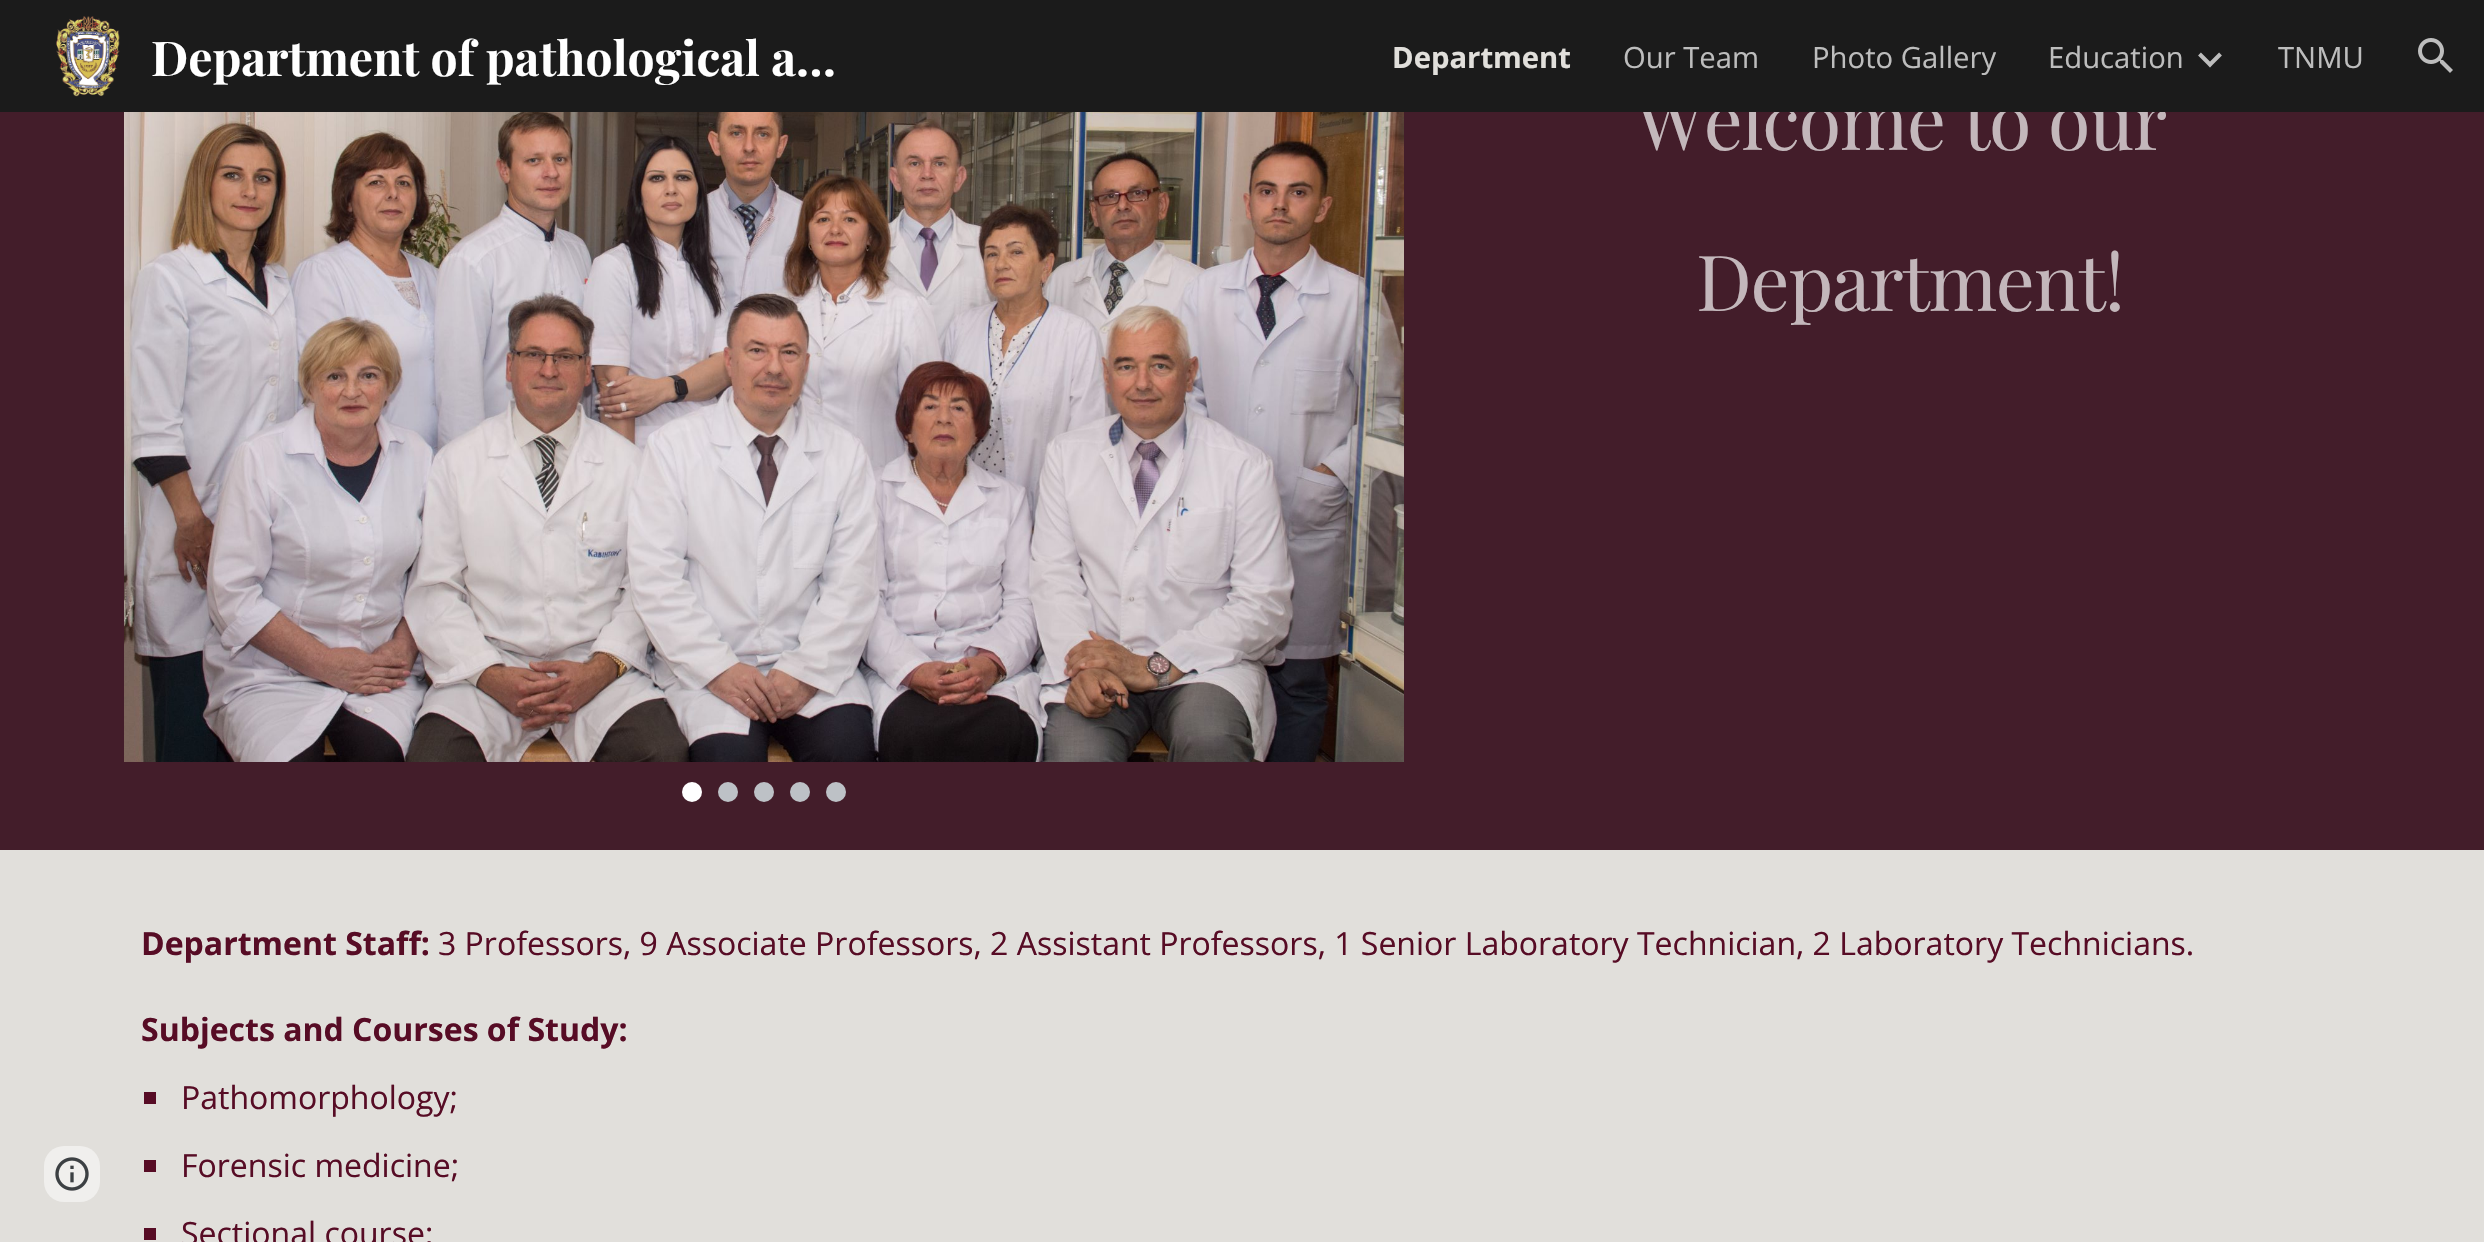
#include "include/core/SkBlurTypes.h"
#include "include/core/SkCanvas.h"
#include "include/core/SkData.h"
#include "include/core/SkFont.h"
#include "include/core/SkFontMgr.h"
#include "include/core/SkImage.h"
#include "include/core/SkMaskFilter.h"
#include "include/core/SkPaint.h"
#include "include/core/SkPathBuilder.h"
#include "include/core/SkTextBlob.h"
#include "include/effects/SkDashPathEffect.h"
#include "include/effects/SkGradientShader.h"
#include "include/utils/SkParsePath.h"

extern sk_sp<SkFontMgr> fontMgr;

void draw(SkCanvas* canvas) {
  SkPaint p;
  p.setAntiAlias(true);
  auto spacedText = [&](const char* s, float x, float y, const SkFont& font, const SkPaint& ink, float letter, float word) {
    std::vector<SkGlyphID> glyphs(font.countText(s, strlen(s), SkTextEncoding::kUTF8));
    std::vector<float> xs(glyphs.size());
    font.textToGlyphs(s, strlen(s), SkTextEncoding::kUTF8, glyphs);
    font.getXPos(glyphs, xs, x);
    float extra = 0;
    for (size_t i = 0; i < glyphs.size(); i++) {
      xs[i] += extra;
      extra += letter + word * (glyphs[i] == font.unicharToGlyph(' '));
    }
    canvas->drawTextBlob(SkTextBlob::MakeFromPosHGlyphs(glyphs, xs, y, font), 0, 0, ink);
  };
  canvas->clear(SkColorSetRGB(67, 29, 42));
  p.setColor(SkColorSetRGB(225, 223, 219));
  canvas->drawRect(SkRect::MakeLTRB(0, 850, 2484, 1242), p);
  p.setColor(SkColorSetRGB(240, 239, 237));
  canvas->drawRoundRect(SkRect::MakeLTRB(44, 1146, 100, 1202), 20, 20, p);
  canvas->drawImageRect(SkImages::DeferredFromEncodedData(SkData::MakeFromFileName("images/3.png")), SkRect::MakeLTRB(55, 1157, 89, 1191), SkSamplingOptions());
  canvas->drawImageRect(SkImages::DeferredFromEncodedData(SkData::MakeFromFileName("images/4.png")), SkRect::MakeLTRB(124, 112, 1404, 762), SkSamplingOptions());
  p.setColor(SK_ColorWHITE);
  canvas->drawCircle(692, 792, 10, p);
  p.setColor(SkColorSetRGB(189, 193, 198));
  canvas->drawCircle(728, 792, 10, p);
  canvas->drawCircle(764, 792, 10, p);
  canvas->drawCircle(800, 792, 10, p);
  canvas->drawCircle(836, 792, 10, p);
  p.setColor(SkColorSetRGB(87, 12, 37));
  canvas->drawRect(SkRect::MakeLTRB(144, 1092, 156, 1104), p);
  canvas->drawRect(SkRect::MakeLTRB(144, 1160, 156, 1172), p);
  canvas->drawRect(SkRect::MakeLTRB(144, 1228, 156, 1240), p);
  SkFont font1(fontMgr->matchFamilyStyle("Playfair Display", SkFontStyle::Normal()), 77.25f);
  font1.setSubpixel(true);
  p.setColor(SkColorSetRGB(195, 183, 187));
  spacedText("Welcome to our", 1635, 150, font1, p, -1.25f, 0);
  p.setColor(SkColorSetRGB(27, 27, 27));
  canvas->drawRect(SkRect::MakeLTRB(0, 0, 2484, 112), p);
  canvas->drawImageRect(SkImages::DeferredFromEncodedData(SkData::MakeFromFileName("images/2.png")), SkRect::MakeLTRB(2418, 38, 2453, 73), SkSamplingOptions());
  SkFont font2(fontMgr->matchFamilyStyle("Open Sans", SkFontStyle::Normal()), 29.25f);
  font2.setSubpixel(true);
  p.setColor(SkColorSetRGB(189, 189, 189));
  canvas->drawString("TNMU", 2278, 68, font2, p);
  p.setStyle(SkPaint::kStroke_Style);
  p.setStrokeWidth(4);
  canvas->drawPath(SkPathBuilder().moveTo(2199.5f, 54).lineTo(2211.5f, 66).moveTo(2208.5f, 66).lineTo(2220.5f, 54).detach(), p);
  p.setStyle(SkPaint::kFill_Style);
  canvas->drawString("Education", 2048, 68, font2, p);
  canvas->drawString("Photo Gallery", 1812, 68, font2, p);
  canvas->drawString("Our Team", 1623, 68, font2, p);
  SkFont font3(fontMgr->matchFamilyStyle("Open Sans", SkFontStyle::Bold()), 29.25f);
  font3.setSubpixel(true);
  p.setColor(SkColorSetRGB(225, 223, 219));
  canvas->drawString("Department", 1392, 68, font3, p);
  SkFont font4(fontMgr->matchFamilyStyle("Playfair Display", SkFontStyle::Bold()), 48);
  font4.setSubpixel(true);
  p.setColor(SK_ColorWHITE);
  canvas->drawString("Department of pathological a…", 151, 76, font4, p);
  canvas->drawImageRect(SkImages::DeferredFromEncodedData(SkData::MakeFromFileName("images/1.png")), SkRect::MakeLTRB(56, 16, 120, 97), SkSamplingOptions());
  p.setColor(SkColorSetRGB(195, 183, 187));
  spacedText("Department!", 1696, 311, font1, p, -1.25f, 0);
  SkFont font5(fontMgr->matchFamilyStyle("Open Sans", SkFontStyle::Bold()), 32);
  font5.setSubpixel(true);
  p.setColor(SkColorSetRGB(87, 12, 37));
  canvas->drawString("Department Staff:", 141, 955, font5, p);
  SkFont font6(fontMgr->matchFamilyStyle("Open Sans", SkFontStyle::Normal()), 32);
  font6.setSubpixel(true);
  canvas->drawString("3 Professors, 9 Associate Professors, 2 Assistant Professors, 1 Senior Laboratory Technician, 2 Laboratory Technicians.", 438, 955, font6, p);
  canvas->drawString("Subjects and Courses of Study:", 141, 1041, font5, p);
  canvas->drawString("Pathomorphology;", 181, 1109, font6, p);
  canvas->drawString("Forensic medicine;", 181, 1177, font6, p);
  canvas->drawString("Sectional course;", 181, 1245, font6, p);
}
